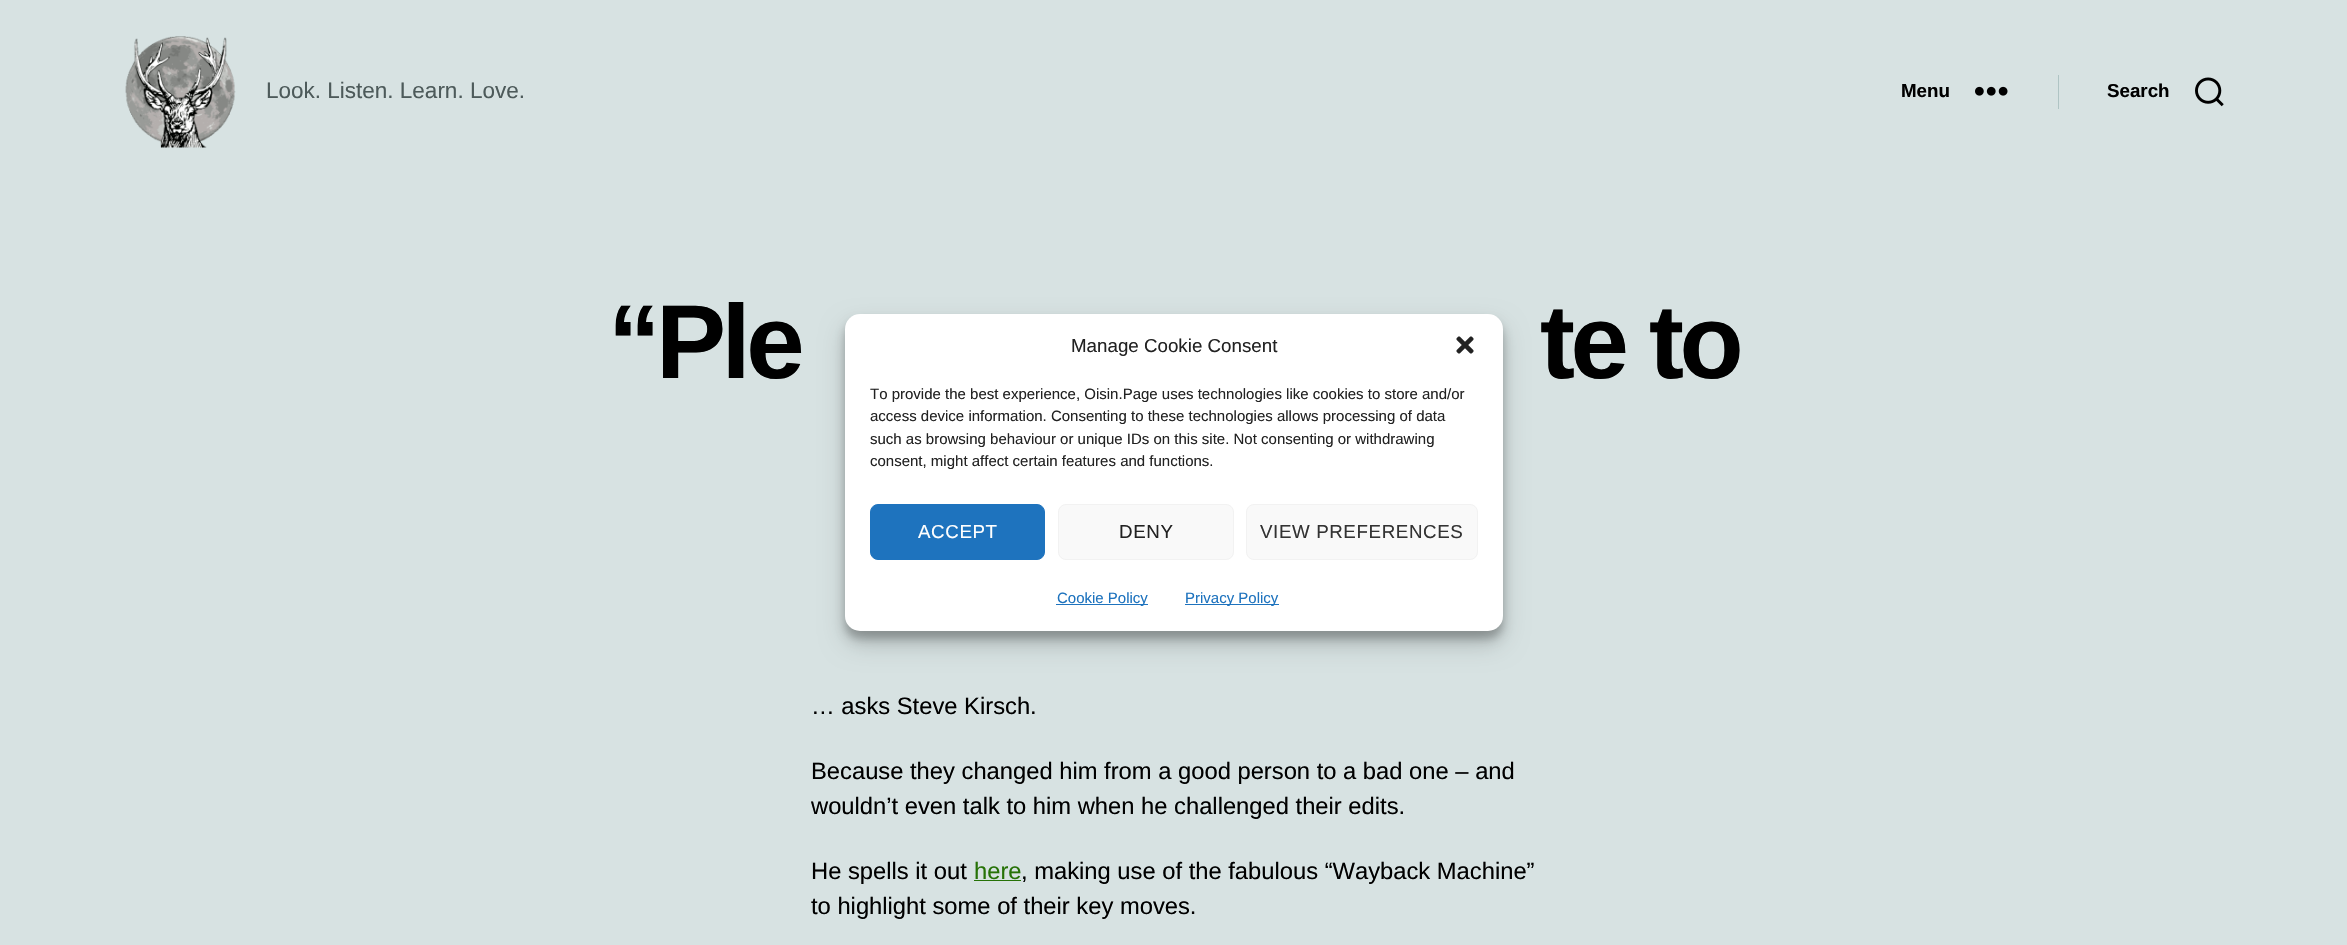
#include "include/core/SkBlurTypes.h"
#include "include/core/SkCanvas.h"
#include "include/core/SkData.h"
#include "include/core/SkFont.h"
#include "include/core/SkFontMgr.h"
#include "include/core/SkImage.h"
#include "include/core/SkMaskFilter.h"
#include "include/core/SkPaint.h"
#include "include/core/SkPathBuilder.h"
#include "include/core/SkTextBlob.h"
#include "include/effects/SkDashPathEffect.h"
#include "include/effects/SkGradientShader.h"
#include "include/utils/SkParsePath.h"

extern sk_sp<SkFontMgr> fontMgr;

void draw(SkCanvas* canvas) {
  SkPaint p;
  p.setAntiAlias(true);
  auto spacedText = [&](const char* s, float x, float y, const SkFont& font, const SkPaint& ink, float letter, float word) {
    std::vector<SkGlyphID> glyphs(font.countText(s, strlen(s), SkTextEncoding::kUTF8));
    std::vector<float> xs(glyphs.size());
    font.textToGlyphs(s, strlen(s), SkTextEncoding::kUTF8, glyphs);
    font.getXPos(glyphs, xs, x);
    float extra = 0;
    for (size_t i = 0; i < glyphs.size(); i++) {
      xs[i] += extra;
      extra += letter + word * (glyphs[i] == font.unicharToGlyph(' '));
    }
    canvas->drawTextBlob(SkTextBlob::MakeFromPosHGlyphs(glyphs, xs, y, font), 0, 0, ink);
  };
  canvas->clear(SkColorSetRGB(215, 226, 226));
  canvas->drawImageRect(SkImages::DeferredFromEncodedData(SkData::MakeFromFileName("images/1.png")), SkRect::MakeLTRB(125, 36, 236, 148), SkSamplingOptions());
  canvas->drawImageRect(SkImages::DeferredFromEncodedData(SkData::MakeFromFileName("images/2.png")), SkRect::MakeLTRB(1975, 86, 2008, 96), SkSamplingOptions());
  p.setColor(SkColorSetRGB(175, 196, 196));
  canvas->drawRect(SkRect::MakeLTRB(2058, 75, 2059, 109), p);
  canvas->drawImageRect(SkImages::DeferredFromEncodedData(SkData::MakeFromFileName("images/3.png")), SkRect::MakeLTRB(2195, 77, 2224, 107), SkSamplingOptions());
  p.setColor(SkColorSetRGB(38, 114, 7));
  canvas->drawRect(SkRect::MakeLTRB(974, 880, 1021, 881), p);
  p.setColor(SkColorSetARGB(59, 0, 0, 0));
  p.setMaskFilter(SkMaskFilter::MakeBlur(kNormal_SkBlurStyle, 4));
  canvas->drawRoundRect(SkRect::MakeLTRB(845, 321, 1503, 639), 15, 15, p);
  p.setMaskFilter(nullptr);
  p.setColor(SkColorSetARGB(48, 0, 0, 0));
  p.setMaskFilter(SkMaskFilter::MakeBlur(kNormal_SkBlurStyle, 12.5f));
  canvas->drawRoundRect(SkRect::MakeLTRB(845, 326, 1503, 644), 15, 15, p);
  p.setMaskFilter(nullptr);
  p.setColor(SK_ColorWHITE);
  canvas->drawRoundRect(SkRect::MakeLTRB(845, 314, 1503, 631), 15, 15, p);
  canvas->drawImageRect(SkImages::DeferredFromEncodedData(SkData::MakeFromFileName("images/4.png")), SkRect::MakeLTRB(1456, 336, 1474, 354), SkSamplingOptions());
  p.setColor(SkColorSetRGB(30, 115, 190));
  canvas->drawRoundRect(SkRect::MakeLTRB(870.5f, 504.5f, 1044.5f, 559.5f), 7.5f, 7.5f, p);
  p.setStyle(SkPaint::kStroke_Style);
  p.setStrokeWidth(1);
  canvas->drawRoundRect(SkRect::MakeLTRB(870.5f, 504.5f, 1044.5f, 559.5f), 7.5f, 7.5f, p);
  p.setStyle(SkPaint::kFill_Style);
  p.setColor(SkColorSetRGB(249, 249, 249));
  canvas->drawRoundRect(SkRect::MakeLTRB(1058.5f, 504.5f, 1233.5f, 559.5f), 7.5f, 7.5f, p);
  p.setStyle(SkPaint::kStroke_Style);
  p.setColor(SkColorSetRGB(242, 242, 242));
  canvas->drawRoundRect(SkRect::MakeLTRB(1058.5f, 504.5f, 1233.5f, 559.5f), 7.5f, 7.5f, p);
  p.setStyle(SkPaint::kFill_Style);
  p.setColor(SkColorSetRGB(249, 249, 249));
  canvas->drawRoundRect(SkRect::MakeLTRB(1246.5f, 504.5f, 1477.5f, 559.5f), 7.5f, 7.5f, p);
  p.setStyle(SkPaint::kStroke_Style);
  p.setColor(SkColorSetRGB(242, 242, 242));
  canvas->drawRoundRect(SkRect::MakeLTRB(1246.5f, 504.5f, 1477.5f, 559.5f), 7.5f, 7.5f, p);
  p.setStyle(SkPaint::kFill_Style);
  p.setColor(SkColorSetRGB(30, 115, 190));
  canvas->drawRect(SkRect::MakeLTRB(1056, 604, 1148, 605), p);
  canvas->drawRect(SkRect::MakeLTRB(1185, 604, 1279, 605), p);
  SkFont font1(fontMgr->matchFamilyStyle("Liberation Sans", SkFontStyle::Normal()), 22.5f);
  font1.setSubpixel(true);
  p.setColor(SkColorSetRGB(77, 90, 90));
  canvas->drawString("Look. Listen. Learn. Love.", 266, 98, font1, p);
  SkFont font2(fontMgr->matchFamilyStyle("Liberation Sans", SkFontStyle::Bold()), 18.75f);
  font2.setSubpixel(true);
  p.setColor(SK_ColorBLACK);
  canvas->drawString("Menu", 1901, 97, font2, p);
  canvas->drawString("Search", 2107, 97, font2, p);
  SkFont font3(fontMgr->matchFamilyStyle("Liberation Sans", SkFontStyle::Bold()), 105);
  font3.setSubpixel(true);
  spacedText("“Ple", 608, 378, font3, p, -4.5f, 0);
  spacedText("te to", 1540, 378, font3, p, -4.5f, 0);
  SkFont font4(fontMgr->matchFamilyStyle("Liberation Sans", SkFontStyle::Normal()), 23.75f);
  font4.setSubpixel(true);
  canvas->drawString("… asks Steve Kirsch.", 811, 714, font4, p);
  canvas->drawString("Because they changed him from a good person to a bad one – and", 811, 779, font4, p);
  canvas->drawString("wouldn’t even talk to him when he challenged their edits.", 811, 814, font4, p);
  canvas->drawString("He spells it out", 811, 879, font4, p);
  p.setColor(SkColorSetRGB(38, 114, 7));
  canvas->drawString("here", 974, 879, font4, p);
  p.setColor(SK_ColorBLACK);
  canvas->drawString(", making use of the fabulous “Wayback Machine”", 1021, 879, font4, p);
  canvas->drawString("to highlight some of their key moves.", 811, 914, font4, p);
  SkFont font5(fontMgr->matchFamilyStyle("Liberation Sans", SkFontStyle::Normal()), 18.75f);
  font5.setSubpixel(true);
  p.setColor(SkColorSetRGB(34, 34, 34));
  canvas->drawString("Manage Cookie Consent", 1071, 352, font5, p);
  SkFont font6(fontMgr->matchFamilyStyle("Liberation Sans", SkFontStyle::Normal()), 15);
  font6.setSubpixel(true);
  canvas->drawString("To provide the best experience, Oisin.Page uses technologies like cookies to store and/or", 870, 399, font6, p);
  canvas->drawString("access device information. Consenting to these technologies allows processing of data", 870, 421, font6, p);
  canvas->drawString("such as browsing behaviour or unique IDs on this site. Not consenting or withdrawing", 870, 444, font6, p);
  canvas->drawString("consent, might affect certain features and functions.", 870, 466, font6, p);
  p.setColor(SK_ColorWHITE);
  spacedText("ACCEPT", 918, 538, font5, p, 0.6f, 0);
  p.setColor(SkColorSetRGB(34, 34, 34));
  spacedText("DENY", 1119, 538, font5, p, 0.6f, 0);
  p.setColor(SkColorSetRGB(51, 51, 51));
  spacedText("VIEW PREFERENCES", 1260, 538, font5, p, 0.6f, 0);
  p.setColor(SkColorSetRGB(30, 115, 190));
  canvas->drawString("Cookie Policy", 1057, 603, font6, p);
  canvas->drawString("Privacy Policy", 1185, 603, font6, p);
}
